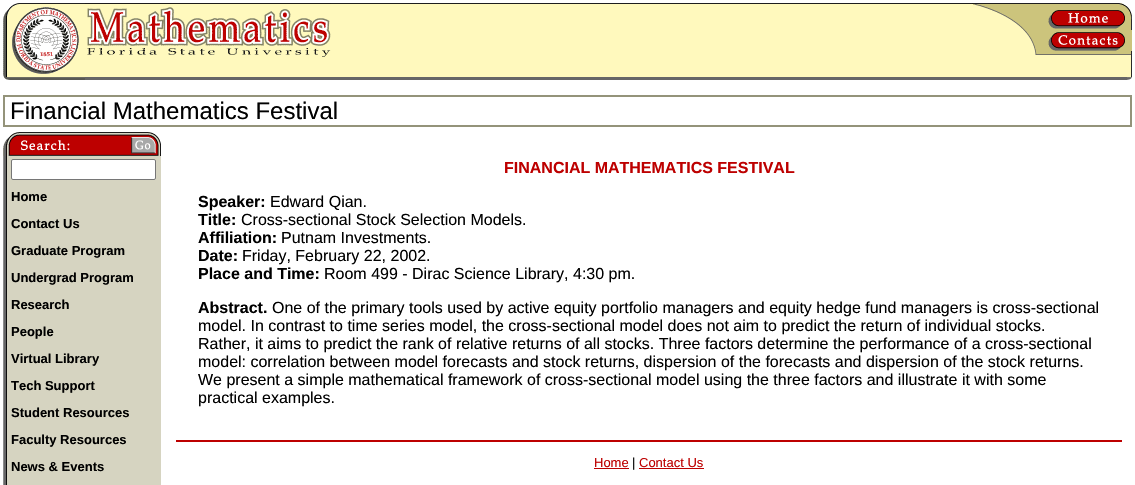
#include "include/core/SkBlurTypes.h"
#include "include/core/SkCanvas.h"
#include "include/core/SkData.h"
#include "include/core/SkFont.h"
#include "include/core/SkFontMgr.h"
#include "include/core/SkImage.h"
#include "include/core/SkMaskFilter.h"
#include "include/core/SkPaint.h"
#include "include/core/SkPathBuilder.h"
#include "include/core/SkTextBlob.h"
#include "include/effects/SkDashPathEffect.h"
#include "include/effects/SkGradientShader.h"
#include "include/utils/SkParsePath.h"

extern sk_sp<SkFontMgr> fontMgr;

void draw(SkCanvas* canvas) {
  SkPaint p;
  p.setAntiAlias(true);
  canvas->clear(SK_ColorWHITE);
  canvas->drawImageRect(SkImages::DeferredFromEncodedData(SkData::MakeFromFileName("images/1.png")), SkRect::MakeLTRB(3, 3, 85, 80), SkSamplingOptions());
  p.setColor(SkColorSetRGB(255, 249, 189));
  canvas->drawRect(SkRect::MakeLTRB(331, 4, 972, 57), p);
  p.setColor(SkColorSetRGB(30, 30, 30));
  canvas->drawRect(SkRect::MakeLTRB(331, 3, 972, 4), p);
  canvas->drawImageRect(SkImages::DeferredFromEncodedData(SkData::MakeFromFileName("images/2.png")), SkRect::MakeLTRB(85, 3, 331, 57), SkSamplingOptions());
  p.setColor(SkColorSetRGB(255, 249, 189));
  canvas->drawRect(SkRect::MakeLTRB(972, 8, 1035, 57), p);
  canvas->drawImageRect(SkImages::DeferredFromEncodedData(SkData::MakeFromFileName("images/3.png")), SkRect::MakeLTRB(972, 3, 1132, 8), SkSamplingOptions());
  canvas->drawImageRect(SkImages::DeferredFromEncodedData(SkData::MakeFromFileName("images/4.png")), SkRect::MakeLTRB(986, 8, 1048, 30), SkSamplingOptions());
  canvas->drawImageRect(SkImages::DeferredFromEncodedData(SkData::MakeFromFileName("images/5.png")), SkRect::MakeLTRB(1048, 8, 1127, 30), SkSamplingOptions());
  canvas->drawImageRect(SkImages::DeferredFromEncodedData(SkData::MakeFromFileName("images/6.png")), SkRect::MakeLTRB(1127, 8, 1132, 30), SkSamplingOptions());
  canvas->drawImageRect(SkImages::DeferredFromEncodedData(SkData::MakeFromFileName("images/7.png")), SkRect::MakeLTRB(1023, 30, 1048, 51), SkSamplingOptions());
  canvas->drawImageRect(SkImages::DeferredFromEncodedData(SkData::MakeFromFileName("images/8.png")), SkRect::MakeLTRB(1048, 30, 1127, 51), SkSamplingOptions());
  p.setColor(SkColorSetRGB(204, 196, 124));
  canvas->drawRect(SkRect::MakeLTRB(1127, 30, 1132, 51), p);
  canvas->drawImageRect(SkImages::DeferredFromEncodedData(SkData::MakeFromFileName("images/9.png")), SkRect::MakeLTRB(1035, 51, 1132, 57), SkSamplingOptions());
  p.setColor(SkColorSetRGB(255, 249, 189));
  canvas->drawRect(SkRect::MakeLTRB(85, 57, 1127, 77), p);
  p.setColor(SkColorSetRGB(102, 102, 102));
  canvas->drawRect(SkRect::MakeLTRB(85, 77, 1127, 80), p);
  canvas->drawImageRect(SkImages::DeferredFromEncodedData(SkData::MakeFromFileName("images/10.png")), SkRect::MakeLTRB(1127, 57, 1132, 80), SkSamplingOptions());
  p.setColor(SkColorSetRGB(148, 147, 122));
  canvas->drawRect(SkRect::MakeLTRB(3, 95, 1132, 127), p);
  p.setColor(SK_ColorWHITE);
  canvas->drawRect(SkRect::MakeLTRB(5, 97, 1130, 125), p);
  canvas->drawImageRect(SkImages::DeferredFromEncodedData(SkData::MakeFromFileName("images/11.png")), SkRect::MakeLTRB(70, 132, 115, 156), SkSamplingOptions());
  canvas->drawImageRect(SkImages::DeferredFromEncodedData(SkData::MakeFromFileName("images/12.png")), SkRect::MakeLTRB(3, 132, 70, 156), SkSamplingOptions());
  canvas->drawImageRect(SkImages::DeferredFromEncodedData(SkData::MakeFromFileName("images/13.png")), SkRect::MakeLTRB(115, 132, 156, 156), SkSamplingOptions());
  canvas->drawImageRect(SkImages::DeferredFromEncodedData(SkData::MakeFromFileName("images/14.png")), SkRect::MakeLTRB(131, 132, 156, 154), SkSamplingOptions());
  canvas->drawImageRect(SkImages::DeferredFromEncodedData(SkData::MakeFromFileName("images/15.png")), SkRect::MakeLTRB(156, 132, 161, 156), SkSamplingOptions());
  canvas->drawImageRect(SkImages::DeferredFromEncodedData(SkData::MakeFromFileName("images/16.png")), SkRect::MakeLTRB(3, 156, 11, 485), SkSamplingOptions());
  p.setColor(SkColorSetRGB(214, 212, 193));
  canvas->drawRect(SkRect::MakeLTRB(11, 156, 161, 485), p);
  p.setColor(SK_ColorWHITE);
  canvas->drawRoundRect(SkRect::MakeLTRB(11.5f, 159.5f, 155.5f, 179.5f), 1.5f, 1.5f, p);
  p.setStyle(SkPaint::kStroke_Style);
  p.setStrokeWidth(1);
  p.setColor(SkColorSetRGB(118, 118, 118));
  canvas->drawRoundRect(SkRect::MakeLTRB(11.5f, 159.5f, 155.5f, 179.5f), 1.5f, 1.5f, p);
  p.setStyle(SkPaint::kFill_Style);
  p.setColor(SkColorSetRGB(189, 0, 0));
  canvas->drawRect(SkRect::MakeLTRB(176, 440, 1122, 442), p);
  canvas->drawRect(SkRect::MakeLTRB(594, 468, 629, 469), p);
  canvas->drawRect(SkRect::MakeLTRB(639, 468, 704, 469), p);
  SkFont font1(fontMgr->matchFamilyStyle("Liberation Sans", SkFontStyle::Normal()), 24);
  font1.setSubpixel(true);
  p.setColor(SK_ColorBLACK);
  canvas->drawString("Financial Mathematics Festival", 10, 119, font1, p);
  SkFont font2(fontMgr->matchFamilyStyle("Liberation Sans", SkFontStyle::Bold()), 13);
  font2.setSubpixel(true);
  canvas->drawString("Home", 11, 201, font2, p);
  canvas->drawString("Contact Us", 11, 228, font2, p);
  canvas->drawString("Graduate Program", 11, 255, font2, p);
  canvas->drawString("Undergrad Program", 11, 282, font2, p);
  canvas->drawString("Research", 11, 309, font2, p);
  canvas->drawString("People", 11, 336, font2, p);
  canvas->drawString("Virtual Library", 11, 363, font2, p);
  canvas->drawString("Tech Support", 11, 390, font2, p);
  canvas->drawString("Student Resources", 11, 417, font2, p);
  canvas->drawString("Faculty Resources", 11, 444, font2, p);
  canvas->drawString("News & Events", 11, 471, font2, p);
  SkFont font3(fontMgr->matchFamilyStyle("Liberation Sans", SkFontStyle::Bold()), 16);
  font3.setSubpixel(true);
  p.setColor(SkColorSetRGB(189, 0, 0));
  canvas->drawString("FINANCIAL MATHEMATICS FESTIVAL", 504, 173, font3, p);
  p.setColor(SK_ColorBLACK);
  canvas->drawString("Speaker:", 198, 207, font3, p);
  SkFont font4(fontMgr->matchFamilyStyle("Liberation Sans", SkFontStyle::Normal()), 16);
  font4.setSubpixel(true);
  canvas->drawString("Edward Qian.", 270, 207, font4, p);
  canvas->drawString("Title:", 198, 225, font3, p);
  canvas->drawString("Cross-sectional Stock Selection Models.", 241, 225, font4, p);
  canvas->drawString("Affiliation:", 198, 243, font3, p);
  canvas->drawString("Putnam Investments.", 281, 243, font4, p);
  canvas->drawString("Date:", 198, 261, font3, p);
  canvas->drawString("Friday, February 22, 2002.", 242, 261, font4, p);
  canvas->drawString("Place and Time:", 198, 279, font3, p);
  canvas->drawString("Room 499 - Dirac Science Library, 4:30 pm.", 324, 279, font4, p);
  canvas->drawString("Abstract.", 198, 313, font3, p);
  canvas->drawString("One of the primary tools used by active equity portfolio managers and equity hedge fund managers is cross-sectional", 272, 313, font4, p);
  canvas->drawString("model. In contrast to time series model, the cross-sectional model does not aim to predict the return of individual stocks.", 198, 331, font4, p);
  canvas->drawString("Rather, it aims to predict the rank of relative returns of all stocks. Three factors determine the performance of a cross-sectional", 198, 349, font4, p);
  canvas->drawString("model: correlation between model forecasts and stock returns, dispersion of the forecasts and dispersion of the stock returns.", 198, 367, font4, p);
  canvas->drawString("We present a simple mathematical framework of cross-sectional model using the three factors and illustrate it with some", 198, 385, font4, p);
  canvas->drawString("practical examples.", 198, 403, font4, p);
  SkFont font5(fontMgr->matchFamilyStyle("Liberation Sans", SkFontStyle::Normal()), 13);
  font5.setSubpixel(true);
  p.setColor(SkColorSetRGB(189, 0, 0));
  canvas->drawString("Home", 594, 467, font5, p);
  p.setColor(SK_ColorBLACK);
  canvas->drawString("|", 632, 467, font5, p);
  p.setColor(SkColorSetRGB(189, 0, 0));
  canvas->drawString("Contact Us", 639, 467, font5, p);
}
